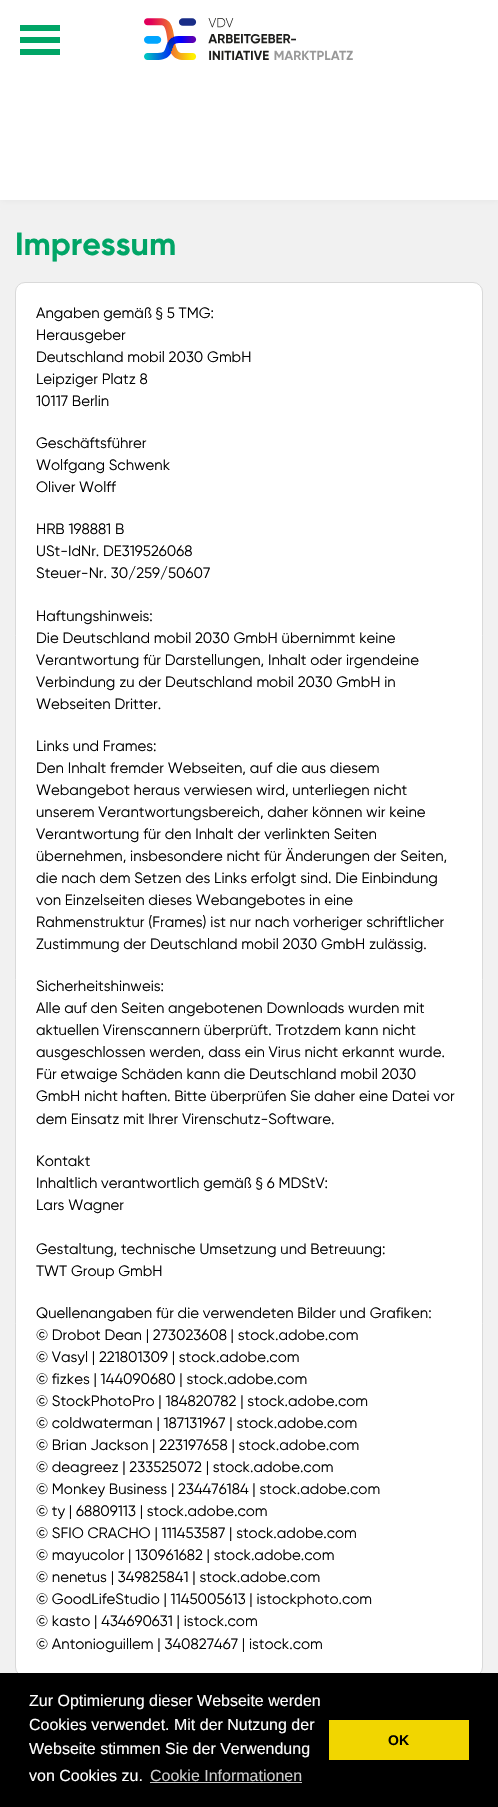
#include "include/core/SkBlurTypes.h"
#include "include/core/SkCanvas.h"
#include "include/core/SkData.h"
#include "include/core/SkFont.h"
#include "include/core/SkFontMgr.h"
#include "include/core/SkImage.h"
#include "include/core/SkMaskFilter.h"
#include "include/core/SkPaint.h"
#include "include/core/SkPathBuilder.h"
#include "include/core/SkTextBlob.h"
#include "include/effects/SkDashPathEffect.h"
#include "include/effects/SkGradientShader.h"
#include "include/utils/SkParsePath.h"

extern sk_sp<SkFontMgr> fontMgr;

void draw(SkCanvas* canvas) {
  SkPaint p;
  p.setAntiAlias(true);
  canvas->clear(SkColorSetRGB(241, 241, 241));
  p.setColor(SkColorSetARGB(13, 0, 0, 0));
  p.setMaskFilter(SkMaskFilter::MakeBlur(kNormal_SkBlurStyle, 3.5f));
  canvas->drawRect(SkRect::MakeLTRB(1, 0, 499, 200), p);
  p.setMaskFilter(nullptr);
  p.setColor(SK_ColorWHITE);
  canvas->drawRect(SkRect::MakeLTRB(0, 0, 498, 200), p);
  p.setColor(SkColorSetRGB(0, 165, 102));
  canvas->drawRect(SkRect::MakeLTRB(20, 25, 60, 31), p);
  canvas->drawRect(SkRect::MakeLTRB(20, 37, 60, 43), p);
  canvas->drawRect(SkRect::MakeLTRB(20, 49, 60, 55), p);
  canvas->drawImageRect(SkImages::DeferredFromEncodedData(SkData::MakeFromFileName("images/1.png")), SkRect::MakeLTRB(144, 18, 353, 60), SkSamplingOptions());
  p.setColor(SK_ColorWHITE);
  canvas->drawRoundRect(SkRect::MakeLTRB(15.5f, 282.5f, 482.5f, 1676.5f), 9.5f, 9.5f, p);
  p.setStyle(SkPaint::kStroke_Style);
  p.setStrokeWidth(1);
  p.setColor(SkColorSetRGB(217, 217, 217));
  canvas->drawRoundRect(SkRect::MakeLTRB(15.5f, 282.5f, 482.5f, 1676.5f), 9.5f, 9.5f, p);
  p.setStyle(SkPaint::kFill_Style);
  p.setColor(SK_ColorBLACK);
  canvas->drawRect(SkRect::MakeLTRB(0, 1673, 498, 1807), p);
  p.setColor(SkColorSetRGB(204, 204, 204));
  canvas->drawRect(SkRect::MakeLTRB(150, 1782, 302, 1783), p);
  p.setColor(SkColorSetRGB(241, 214, 0));
  canvas->drawRect(SkRect::MakeLTRB(329, 1720, 469, 1760), p);
  SkFont font1(fontMgr->matchFamilyStyle("Gilroy", SkFontStyle::Normal()), 32);
  font1.setSubpixel(true);
  p.setColor(SkColorSetRGB(0, 165, 102));
  canvas->drawString("Impressum", 15, 255, font1, p);
  SkFont font2(fontMgr->matchFamilyStyle("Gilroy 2", SkFontStyle::Normal()), 15);
  font2.setSubpixel(true);
  p.setColor(SK_ColorBLACK);
  canvas->drawString("Angaben gemäß § 5 TMG:", 36, 318, font2, p);
  canvas->drawString("Herausgeber", 36, 340, font2, p);
  canvas->drawString("Deutschland mobil 2030 GmbH", 36, 362, font2, p);
  canvas->drawString("Leipziger Platz 8", 36, 384, font2, p);
  canvas->drawString("10117 Berlin", 36, 406, font2, p);
  canvas->drawString("Geschäftsführer", 36, 448, font2, p);
  canvas->drawString("Wolfgang Schwenk", 36, 470, font2, p);
  canvas->drawString("Oliver Wolff", 36, 492, font2, p);
  canvas->drawString("HRB 198881 B", 36, 534, font2, p);
  canvas->drawString("USt-IdNr. DE319526068", 36, 556, font2, p);
  canvas->drawString("Steuer-Nr. 30/259/50607", 36, 578, font2, p);
  canvas->drawString("Haftungshinweis:", 36, 621, font2, p);
  canvas->drawString("Die Deutschland mobil 2030 GmbH übernimmt keine", 36, 643, font2, p);
  canvas->drawString("Verantwortung für Darstellungen, Inhalt oder irgendeine", 36, 665, font2, p);
  canvas->drawString("Verbindung zu der Deutschland mobil 2030 GmbH in", 36, 687, font2, p);
  canvas->drawString("Webseiten Dritter.", 36, 709, font2, p);
  canvas->drawString("Links und Frames:", 36, 751, font2, p);
  canvas->drawString("Den Inhalt fremder Webseiten, auf die aus diesem", 36, 773, font2, p);
  canvas->drawString("Webangebot heraus verwiesen wird, unterliegen nicht", 36, 795, font2, p);
  canvas->drawString("unserem Verantwortungsbereich, daher können wir keine", 36, 817, font2, p);
  canvas->drawString("Verantwortung für den Inhalt der verlinkten Seiten", 36, 839, font2, p);
  canvas->drawString("übernehmen, insbesondere nicht für Änderungen der Seiten,", 36, 861, font2, p);
  canvas->drawString("die nach dem Setzen des Links erfolgt sind. Die Einbindung", 36, 883, font2, p);
  canvas->drawString("von Einzelseiten dieses Webangebotes in eine", 36, 905, font2, p);
  canvas->drawString("Rahmenstruktur (Frames) ist nur nach vorheriger schriftlicher", 36, 927, font2, p);
  canvas->drawString("Zustimmung der Deutschland mobil 2030 GmbH zulässig.", 36, 949, font2, p);
  canvas->drawString("Sicherheitshinweis:", 36, 991, font2, p);
  canvas->drawString("Alle auf den Seiten angebotenen Downloads wurden mit", 36, 1013, font2, p);
  canvas->drawString("aktuellen Virenscannern überprüft. Trotzdem kann nicht", 36, 1035, font2, p);
  canvas->drawString("ausgeschlossen werden, dass ein Virus nicht erkannt wurde.", 36, 1057, font2, p);
  canvas->drawString("Für etwaige Schäden kann die Deutschland mobil 2030", 36, 1079, font2, p);
  canvas->drawString("GmbH nicht haften. Bitte überprüfen Sie daher eine Datei vor", 36, 1101, font2, p);
  canvas->drawString("dem Einsatz mit Ihrer Virenschutz-Software.", 36, 1124, font2, p);
  canvas->drawString("Kontakt", 36, 1166, font2, p);
  canvas->drawString("Inhaltlich verantwortlich gemäß § 6 MDStV:", 36, 1188, font2, p);
  canvas->drawString("Lars Wagner", 36, 1210, font2, p);
  canvas->drawString("Gestaltung, technische Umsetzung und Betreuung:", 36, 1254, font2, p);
  canvas->drawString("TWT Group GmbH", 36, 1276, font2, p);
  canvas->drawString("Quellenangaben für die verwendeten Bilder und Grafiken:", 36, 1318, font2, p);
  canvas->drawString("© Drobot Dean | 273023608 | stock.adobe.com", 36, 1340, font2, p);
  canvas->drawString("© Vasyl | 221801309 | stock.adobe.com", 36, 1362, font2, p);
  canvas->drawString("© fizkes | 144090680 | stock.adobe.com", 36, 1384, font2, p);
  canvas->drawString("© StockPhotoPro | 184820782 | stock.adobe.com", 36, 1406, font2, p);
  canvas->drawString("© coldwaterman | 187131967 | stock.adobe.com", 36, 1428, font2, p);
  canvas->drawString("© Brian Jackson | 223197658 | stock.adobe.com", 36, 1450, font2, p);
  canvas->drawString("© deagreez | 233525072 | stock.adobe.com", 36, 1472, font2, p);
  canvas->drawString("© Monkey Business | 234476184 | stock.adobe.com", 36, 1494, font2, p);
  canvas->drawString("© ty | 68809113 | stock.adobe.com", 36, 1516, font2, p);
  canvas->drawString("© SFIO CRACHO | 111453587 | stock.adobe.com", 36, 1538, font2, p);
  canvas->drawString("© mayucolor | 130961682 | stock.adobe.com", 36, 1560, font2, p);
  canvas->drawString("© nenetus | 349825841 | stock.adobe.com", 36, 1582, font2, p);
  canvas->drawString("© GoodLifeStudio | 1145005613 | istockphoto.com", 36, 1604, font2, p);
  canvas->drawString("© kasto | 434690631 | istock.com", 36, 1626, font2, p);
  canvas->drawString("© Antonioguillem | 340827467 | istock.com", 36, 1649, font2, p);
  SkFont font3(fontMgr->matchFamilyStyle("Liberation Sans", SkFontStyle::Normal()), 16);
  font3.setSubpixel(true);
  p.setColor(SK_ColorWHITE);
  canvas->drawString("Zur Optimierung dieser Webseite werden", 29, 1706, font3, p);
  canvas->drawString("Cookies verwendet. Mit der Nutzung der", 29, 1730, font3, p);
  canvas->drawString("Webseite stimmen Sie der Verwendung", 29, 1754, font3, p);
  canvas->drawString("von Cookies zu.", 29, 1781, font3, p);
  p.setColor(SkColorSetRGB(204, 204, 204));
  canvas->drawString("Cookie Informationen", 150, 1781, font3, p);
  SkFont font4(fontMgr->matchFamilyStyle("Liberation Sans", SkFontStyle::Bold()), 14);
  font4.setSubpixel(true);
  p.setColor(SK_ColorBLACK);
  canvas->drawString("OK", 388, 1745, font4, p);
}
